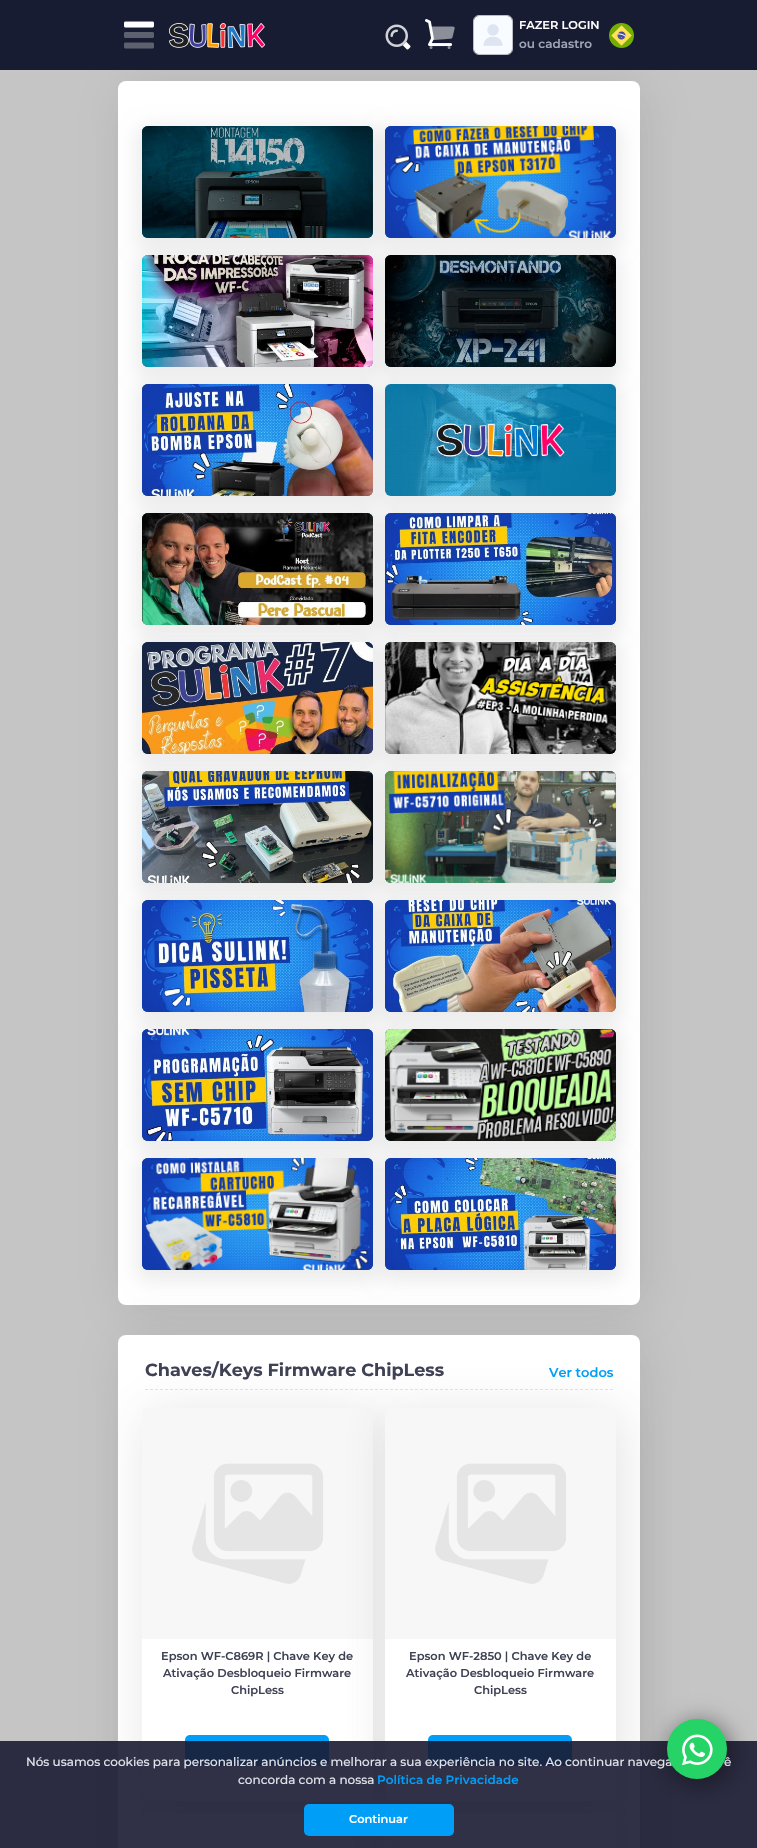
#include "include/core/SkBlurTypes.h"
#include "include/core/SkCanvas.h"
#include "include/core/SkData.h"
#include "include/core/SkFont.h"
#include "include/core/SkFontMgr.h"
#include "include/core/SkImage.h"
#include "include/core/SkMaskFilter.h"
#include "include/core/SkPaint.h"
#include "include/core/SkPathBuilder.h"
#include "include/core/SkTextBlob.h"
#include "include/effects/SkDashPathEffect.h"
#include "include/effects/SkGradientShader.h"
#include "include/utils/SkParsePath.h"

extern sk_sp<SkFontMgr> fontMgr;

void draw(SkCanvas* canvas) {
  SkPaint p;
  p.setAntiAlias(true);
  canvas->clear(SkColorSetRGB(197, 197, 197));
  p.setColor(SkColorSetARGB(38, 66, 66, 66));
  p.setMaskFilter(SkMaskFilter::MakeBlur(kNormal_SkBlurStyle, 25));
  canvas->drawRoundRect(SkRect::MakeLTRB(123, 86, 645, 1310), 8, 8, p);
  p.setMaskFilter(nullptr);
  p.setColor(SkColorSetRGB(24, 28, 50));
  canvas->drawRect(SkRect::MakeLTRB(0, 0, 757, 70), p);
  canvas->drawImageRect(SkImages::DeferredFromEncodedData(SkData::MakeFromFileName("images/1.png")), SkRect::MakeLTRB(124, 21, 154, 49), SkSamplingOptions());
  canvas->drawImageRect(SkImages::DeferredFromEncodedData(SkData::MakeFromFileName("images/2.png")), SkRect::MakeLTRB(169, 23, 265, 48), SkSamplingOptions());
  canvas->drawImageRect(SkImages::DeferredFromEncodedData(SkData::MakeFromFileName("images/3.png")), SkRect::MakeLTRB(385, 24, 411, 50), SkSamplingOptions());
  canvas->drawImageRect(SkImages::DeferredFromEncodedData(SkData::MakeFromFileName("images/4.png")), SkRect::MakeLTRB(425, 19, 455, 49), SkSamplingOptions());
  p.setStyle(SkPaint::kStroke_Style);
  p.setStrokeWidth(1);
  p.setColor(SkColorSetRGB(188, 189, 196));
  canvas->drawRoundRect(SkRect::MakeLTRB(473.5f, 15.5f, 512.5f, 54.5f), 5.5f, 5.5f, p);
  canvas->drawImageRect(SkImages::DeferredFromEncodedData(SkData::MakeFromFileName("images/5.png")), SkRect::MakeLTRB(474, 16, 512, 54), SkSamplingOptions());
  canvas->drawImageRect(SkImages::DeferredFromEncodedData(SkData::MakeFromFileName("images/6.png")), SkRect::MakeLTRB(609, 23, 634, 48), SkSamplingOptions());
  p.setStyle(SkPaint::kFill_Style);
  p.setColor(SK_ColorWHITE);
  canvas->drawRoundRect(SkRect::MakeLTRB(118, 81, 640, 1305), 8, 8, p);
  canvas->drawImageRect(SkImages::DeferredFromEncodedData(SkData::MakeFromFileName("images/7.png")), SkRect::MakeLTRB(142, 126, 373, 238), SkSamplingOptions());
  p.setColor(SkColorSetARGB(18, 0, 0, 0));
  p.setMaskFilter(SkMaskFilter::MakeBlur(kNormal_SkBlurStyle, 9));
  canvas->drawRoundRect(SkRect::MakeLTRB(136, 126, 379, 250), 12, 12, p);
  p.setMaskFilter(nullptr);
  canvas->drawImageRect(SkImages::DeferredFromEncodedData(SkData::MakeFromFileName("images/8.png")), SkRect::MakeLTRB(142, 126, 373, 238), SkSamplingOptions());
  canvas->drawImageRect(SkImages::DeferredFromEncodedData(SkData::MakeFromFileName("images/9.png")), SkRect::MakeLTRB(385, 126, 616, 238), SkSamplingOptions());
  p.setMaskFilter(SkMaskFilter::MakeBlur(kNormal_SkBlurStyle, 9));
  canvas->drawRoundRect(SkRect::MakeLTRB(379, 126, 622, 250), 12, 12, p);
  p.setMaskFilter(nullptr);
  canvas->drawImageRect(SkImages::DeferredFromEncodedData(SkData::MakeFromFileName("images/10.png")), SkRect::MakeLTRB(385, 126, 616, 238), SkSamplingOptions());
  canvas->drawImageRect(SkImages::DeferredFromEncodedData(SkData::MakeFromFileName("images/11.png")), SkRect::MakeLTRB(142, 255, 373, 367), SkSamplingOptions());
  p.setMaskFilter(SkMaskFilter::MakeBlur(kNormal_SkBlurStyle, 9));
  canvas->drawRoundRect(SkRect::MakeLTRB(136, 255, 379, 379), 12, 12, p);
  p.setMaskFilter(nullptr);
  canvas->drawImageRect(SkImages::DeferredFromEncodedData(SkData::MakeFromFileName("images/12.png")), SkRect::MakeLTRB(142, 255, 373, 367), SkSamplingOptions());
  canvas->drawImageRect(SkImages::DeferredFromEncodedData(SkData::MakeFromFileName("images/13.png")), SkRect::MakeLTRB(385, 255, 616, 367), SkSamplingOptions());
  p.setMaskFilter(SkMaskFilter::MakeBlur(kNormal_SkBlurStyle, 9));
  canvas->drawRoundRect(SkRect::MakeLTRB(379, 255, 622, 379), 12, 12, p);
  p.setMaskFilter(nullptr);
  canvas->drawImageRect(SkImages::DeferredFromEncodedData(SkData::MakeFromFileName("images/14.png")), SkRect::MakeLTRB(385, 255, 616, 367), SkSamplingOptions());
  canvas->drawImageRect(SkImages::DeferredFromEncodedData(SkData::MakeFromFileName("images/11.png")), SkRect::MakeLTRB(142, 384, 373, 496), SkSamplingOptions());
  p.setMaskFilter(SkMaskFilter::MakeBlur(kNormal_SkBlurStyle, 9));
  canvas->drawRoundRect(SkRect::MakeLTRB(136, 384, 379, 508), 12, 12, p);
  p.setMaskFilter(nullptr);
  canvas->drawImageRect(SkImages::DeferredFromEncodedData(SkData::MakeFromFileName("images/15.png")), SkRect::MakeLTRB(142, 384, 373, 496), SkSamplingOptions());
  canvas->drawImageRect(SkImages::DeferredFromEncodedData(SkData::MakeFromFileName("images/13.png")), SkRect::MakeLTRB(385, 384, 616, 496), SkSamplingOptions());
  canvas->save();
  canvas->clipPath(SkPathBuilder(SkPathFillType::kEvenOdd).moveTo(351, 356).lineTo(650, 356).lineTo(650, 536).lineTo(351, 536).close().moveTo(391, 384).lineTo(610, 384).cubicTo(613.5f, 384, 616, 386.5f, 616, 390).lineTo(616, 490).cubicTo(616, 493.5f, 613.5f, 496, 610, 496).lineTo(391, 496).cubicTo(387.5f, 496, 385, 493.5f, 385, 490).lineTo(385, 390).cubicTo(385, 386.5f, 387.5f, 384, 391, 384).close().detach(), true);
  p.setMaskFilter(SkMaskFilter::MakeBlur(kNormal_SkBlurStyle, 9));
  canvas->drawRoundRect(SkRect::MakeLTRB(379, 384, 622, 508), 12, 12, p);
  p.setMaskFilter(nullptr);
  canvas->restore();
  canvas->drawImageRect(SkImages::DeferredFromEncodedData(SkData::MakeFromFileName("images/11.png")), SkRect::MakeLTRB(142, 513, 373, 625), SkSamplingOptions());
  p.setMaskFilter(SkMaskFilter::MakeBlur(kNormal_SkBlurStyle, 9));
  canvas->drawRoundRect(SkRect::MakeLTRB(136, 513, 379, 637), 12, 12, p);
  p.setMaskFilter(nullptr);
  canvas->drawImageRect(SkImages::DeferredFromEncodedData(SkData::MakeFromFileName("images/16.png")), SkRect::MakeLTRB(142, 513, 373, 625), SkSamplingOptions());
  canvas->drawImageRect(SkImages::DeferredFromEncodedData(SkData::MakeFromFileName("images/13.png")), SkRect::MakeLTRB(385, 513, 616, 625), SkSamplingOptions());
  p.setMaskFilter(SkMaskFilter::MakeBlur(kNormal_SkBlurStyle, 9));
  canvas->drawRoundRect(SkRect::MakeLTRB(379, 513, 622, 637), 12, 12, p);
  p.setMaskFilter(nullptr);
  canvas->drawImageRect(SkImages::DeferredFromEncodedData(SkData::MakeFromFileName("images/17.png")), SkRect::MakeLTRB(385, 513, 616, 625), SkSamplingOptions());
  canvas->drawImageRect(SkImages::DeferredFromEncodedData(SkData::MakeFromFileName("images/11.png")), SkRect::MakeLTRB(142, 642, 373, 754), SkSamplingOptions());
  p.setMaskFilter(SkMaskFilter::MakeBlur(kNormal_SkBlurStyle, 9));
  canvas->drawRoundRect(SkRect::MakeLTRB(136, 642, 379, 766), 12, 12, p);
  p.setMaskFilter(nullptr);
  canvas->drawImageRect(SkImages::DeferredFromEncodedData(SkData::MakeFromFileName("images/18.png")), SkRect::MakeLTRB(142, 642, 373, 754), SkSamplingOptions());
  canvas->drawImageRect(SkImages::DeferredFromEncodedData(SkData::MakeFromFileName("images/13.png")), SkRect::MakeLTRB(385, 642, 616, 754), SkSamplingOptions());
  p.setMaskFilter(SkMaskFilter::MakeBlur(kNormal_SkBlurStyle, 9));
  canvas->drawRoundRect(SkRect::MakeLTRB(379, 642, 622, 766), 12, 12, p);
  p.setMaskFilter(nullptr);
  canvas->drawImageRect(SkImages::DeferredFromEncodedData(SkData::MakeFromFileName("images/19.png")), SkRect::MakeLTRB(385, 642, 616, 754), SkSamplingOptions());
  canvas->drawImageRect(SkImages::DeferredFromEncodedData(SkData::MakeFromFileName("images/11.png")), SkRect::MakeLTRB(142, 771, 373, 883), SkSamplingOptions());
  p.setMaskFilter(SkMaskFilter::MakeBlur(kNormal_SkBlurStyle, 9));
  canvas->drawRoundRect(SkRect::MakeLTRB(136, 771, 379, 895), 12, 12, p);
  p.setMaskFilter(nullptr);
  canvas->drawImageRect(SkImages::DeferredFromEncodedData(SkData::MakeFromFileName("images/20.png")), SkRect::MakeLTRB(142, 771, 373, 883), SkSamplingOptions());
  canvas->drawImageRect(SkImages::DeferredFromEncodedData(SkData::MakeFromFileName("images/13.png")), SkRect::MakeLTRB(385, 771, 616, 883), SkSamplingOptions());
  p.setMaskFilter(SkMaskFilter::MakeBlur(kNormal_SkBlurStyle, 9));
  canvas->drawRoundRect(SkRect::MakeLTRB(379, 771, 622, 895), 12, 12, p);
  p.setMaskFilter(nullptr);
  canvas->drawImageRect(SkImages::DeferredFromEncodedData(SkData::MakeFromFileName("images/21.png")), SkRect::MakeLTRB(385, 771, 616, 883), SkSamplingOptions());
  canvas->drawImageRect(SkImages::DeferredFromEncodedData(SkData::MakeFromFileName("images/11.png")), SkRect::MakeLTRB(142, 900, 373, 1012), SkSamplingOptions());
  p.setMaskFilter(SkMaskFilter::MakeBlur(kNormal_SkBlurStyle, 9));
  canvas->drawRoundRect(SkRect::MakeLTRB(136, 900, 379, 1024), 12, 12, p);
  p.setMaskFilter(nullptr);
  canvas->drawImageRect(SkImages::DeferredFromEncodedData(SkData::MakeFromFileName("images/22.png")), SkRect::MakeLTRB(142, 900, 373, 1012), SkSamplingOptions());
  canvas->drawImageRect(SkImages::DeferredFromEncodedData(SkData::MakeFromFileName("images/13.png")), SkRect::MakeLTRB(385, 900, 616, 1012), SkSamplingOptions());
  p.setMaskFilter(SkMaskFilter::MakeBlur(kNormal_SkBlurStyle, 9));
  canvas->drawRoundRect(SkRect::MakeLTRB(379, 900, 622, 1024), 12, 12, p);
  p.setMaskFilter(nullptr);
  canvas->drawImageRect(SkImages::DeferredFromEncodedData(SkData::MakeFromFileName("images/23.png")), SkRect::MakeLTRB(385, 900, 616, 1012), SkSamplingOptions());
  canvas->drawImageRect(SkImages::DeferredFromEncodedData(SkData::MakeFromFileName("images/11.png")), SkRect::MakeLTRB(142, 1029, 373, 1141), SkSamplingOptions());
  p.setMaskFilter(SkMaskFilter::MakeBlur(kNormal_SkBlurStyle, 9));
  canvas->drawRoundRect(SkRect::MakeLTRB(136, 1029, 379, 1153), 12, 12, p);
  p.setMaskFilter(nullptr);
  canvas->drawImageRect(SkImages::DeferredFromEncodedData(SkData::MakeFromFileName("images/24.png")), SkRect::MakeLTRB(142, 1029, 373, 1141), SkSamplingOptions());
  canvas->drawImageRect(SkImages::DeferredFromEncodedData(SkData::MakeFromFileName("images/13.png")), SkRect::MakeLTRB(385, 1029, 616, 1141), SkSamplingOptions());
  p.setMaskFilter(SkMaskFilter::MakeBlur(kNormal_SkBlurStyle, 9));
  canvas->drawRoundRect(SkRect::MakeLTRB(379, 1029, 622, 1153), 12, 12, p);
  p.setMaskFilter(nullptr);
  canvas->drawImageRect(SkImages::DeferredFromEncodedData(SkData::MakeFromFileName("images/25.png")), SkRect::MakeLTRB(385, 1029, 616, 1141), SkSamplingOptions());
  canvas->drawImageRect(SkImages::DeferredFromEncodedData(SkData::MakeFromFileName("images/11.png")), SkRect::MakeLTRB(142, 1158, 373, 1270), SkSamplingOptions());
  p.setMaskFilter(SkMaskFilter::MakeBlur(kNormal_SkBlurStyle, 9));
  canvas->drawRoundRect(SkRect::MakeLTRB(136, 1158, 379, 1282), 12, 12, p);
  p.setMaskFilter(nullptr);
  canvas->drawImageRect(SkImages::DeferredFromEncodedData(SkData::MakeFromFileName("images/26.png")), SkRect::MakeLTRB(142, 1158, 373, 1270), SkSamplingOptions());
  canvas->drawImageRect(SkImages::DeferredFromEncodedData(SkData::MakeFromFileName("images/13.png")), SkRect::MakeLTRB(385, 1158, 616, 1270), SkSamplingOptions());
  p.setMaskFilter(SkMaskFilter::MakeBlur(kNormal_SkBlurStyle, 9));
  canvas->drawRoundRect(SkRect::MakeLTRB(379, 1158, 622, 1282), 12, 12, p);
  p.setMaskFilter(nullptr);
  canvas->drawImageRect(SkImages::DeferredFromEncodedData(SkData::MakeFromFileName("images/27.png")), SkRect::MakeLTRB(385, 1158, 616, 1270), SkSamplingOptions());
  p.setColor(SkColorSetARGB(38, 66, 66, 66));
  p.setMaskFilter(SkMaskFilter::MakeBlur(kNormal_SkBlurStyle, 25));
  canvas->drawRoundRect(SkRect::MakeLTRB(123, 1340, 645, 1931), 8, 8, p);
  p.setMaskFilter(nullptr);
  p.setColor(SK_ColorWHITE);
  canvas->drawRoundRect(SkRect::MakeLTRB(118, 1335, 640, 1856), 8, 8, p);
  p.setStyle(SkPaint::kStroke_Style);
  p.setColor(SkColorSetRGB(225, 227, 234));
  p.setPathEffect(SkDashPathEffect::Make({{3, 2}}, 0));
  canvas->drawPath(SkPathBuilder().moveTo(145, 1389.5f).lineTo(613, 1389.5f).detach(), p);
  p.setPathEffect(nullptr);
  p.setStyle(SkPaint::kFill_Style);
  p.setColor(SkColorSetARGB(38, 66, 66, 66));
  p.setMaskFilter(SkMaskFilter::MakeBlur(kNormal_SkBlurStyle, 25));
  canvas->drawRoundRect(SkRect::MakeLTRB(147, 1413, 378, 1806), 8, 8, p);
  p.setMaskFilter(nullptr);
  p.setColor(SK_ColorWHITE);
  canvas->drawRoundRect(SkRect::MakeLTRB(142, 1408, 373, 1801), 8, 8, p);
  canvas->drawImageRect(SkImages::DeferredFromEncodedData(SkData::MakeFromFileName("images/28.png")), SkRect::MakeLTRB(142, 1408, 373, 1639), SkSamplingOptions());
  p.setColor(SkColorSetRGB(0, 158, 247));
  canvas->drawRoundRect(SkRect::MakeLTRB(185, 1735, 329, 1766), 5, 5, p);
  p.setColor(SkColorSetARGB(38, 66, 66, 66));
  p.setMaskFilter(SkMaskFilter::MakeBlur(kNormal_SkBlurStyle, 25));
  canvas->drawRoundRect(SkRect::MakeLTRB(390, 1413, 621, 1806), 8, 8, p);
  p.setMaskFilter(nullptr);
  p.setColor(SK_ColorWHITE);
  canvas->drawRoundRect(SkRect::MakeLTRB(385, 1408, 616, 1801), 8, 8, p);
  canvas->drawImageRect(SkImages::DeferredFromEncodedData(SkData::MakeFromFileName("images/29.png")), SkRect::MakeLTRB(385, 1408, 616, 1639), SkSamplingOptions());
  p.setColor(SkColorSetRGB(0, 158, 247));
  canvas->drawRoundRect(SkRect::MakeLTRB(428, 1735, 572, 1766), 5, 5, p);
  p.setColor(SkColorSetARGB(38, 66, 66, 66));
  p.setMaskFilter(SkMaskFilter::MakeBlur(kNormal_SkBlurStyle, 25));
  canvas->drawRoundRect(SkRect::MakeLTRB(147, 1818, 378, 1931), 8, 8, p);
  p.setMaskFilter(nullptr);
  canvas->drawImageRect(SkImages::DeferredFromEncodedData(SkData::MakeFromFileName("images/30.png")), SkRect::MakeLTRB(142, 1813, 373, 1848), SkSamplingOptions());
  p.setMaskFilter(SkMaskFilter::MakeBlur(kNormal_SkBlurStyle, 25));
  canvas->drawRoundRect(SkRect::MakeLTRB(390, 1818, 621, 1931), 8, 8, p);
  p.setMaskFilter(nullptr);
  canvas->drawImageRect(SkImages::DeferredFromEncodedData(SkData::MakeFromFileName("images/31.png")), SkRect::MakeLTRB(385, 1813, 616, 1848), SkSamplingOptions());
  p.setColor(SkColorSetARGB(230, 25, 25, 50));
  canvas->drawRect(SkRect::MakeLTRB(0, 1741, 757, 1848), p);
  p.setColor(SkColorSetARGB(128, 0, 0, 0));
  p.setMaskFilter(SkMaskFilter::MakeBlur(kNormal_SkBlurStyle, 12.5f));
  canvas->drawRoundRect(SkRect::MakeLTRB(670, 1722, 730, 1782), 30, 30, p);
  p.setMaskFilter(nullptr);
  p.setColor(SkColorSetRGB(0, 158, 247));
  canvas->drawRoundRect(SkRect::MakeLTRB(304, 1804, 454, 1836), 5, 5, p);
  SkFont font1(fontMgr->matchFamilyStyle("Montserrat", SkFontStyle(600, SkFontStyle::kNormal_Width, SkFontStyle::kUpright_Slant)), 11.4f);
  font1.setSubpixel(true);
  p.setColor(SK_ColorWHITE);
  canvas->drawString("FAZER LOGIN", 519, 29, font1, p);
  SkFont font2(fontMgr->matchFamilyStyle("Montserrat", SkFontStyle(600, SkFontStyle::kNormal_Width, SkFontStyle::kUpright_Slant)), 12);
  font2.setSubpixel(true);
  p.setColor(SkColorSetRGB(161, 165, 183));
  canvas->drawString("ou cadastro", 519, 48, font2, p);
  SkFont font3(fontMgr->matchFamilyStyle("Montserrat", SkFontStyle::Bold()), 17.6f);
  font3.setSubpixel(true);
  p.setColor(SkColorSetRGB(63, 66, 84));
  canvas->drawString("Chaves/Keys Firmware ChipLess", 145, 1376, font3, p);
  SkFont font4(fontMgr->matchFamilyStyle("Montserrat", SkFontStyle(600, SkFontStyle::kNormal_Width, SkFontStyle::kUpright_Slant)), 13);
  font4.setSubpixel(true);
  p.setColor(SkColorSetRGB(0, 158, 247));
  canvas->drawString("Ver todos", 549, 1377, font4, p);
  p.setColor(SkColorSetRGB(63, 66, 84));
  canvas->drawString("Epson WF-C869R | Chave Key de", 161, 1660, font1, p);
  canvas->drawString("Ativação Desbloqueio Firmware", 163, 1677, font1, p);
  canvas->drawString("ChipLess", 231, 1694, font1, p);
  canvas->drawString("Epson WF-2850 | Chave Key de", 409, 1660, font1, p);
  canvas->drawString("Ativação Desbloqueio Firmware", 406, 1677, font1, p);
  canvas->drawString("ChipLess", 474, 1694, font1, p);
  SkFont font5(fontMgr->matchFamilyStyle("Montserrat", SkFontStyle(500, SkFontStyle::kNormal_Width, SkFontStyle::kUpright_Slant)), 12);
  font5.setSubpixel(true);
  p.setColor(SkColorSetRGB(225, 227, 234));
  canvas->drawString("Nós usamos cookies para personalizar anúncios e melhorar a sua experiência no site. Ao continuar navega", 26, 1766, font5, p);
  canvas->drawString("ê", 724, 1766, font5, p);
  p.setColor(SkColorSetRGB(37, 211, 102));
  canvas->drawCircle(697, 1749, 30, p);
  canvas->drawImageRect(SkImages::DeferredFromEncodedData(SkData::MakeFromFileName("images/32.png")), SkRect::MakeLTRB(682, 1734, 713, 1766), SkSamplingOptions());
  p.setColor(SkColorSetRGB(225, 227, 234));
  canvas->drawString("concorda com a nossa", 238, 1784, font5, p);
  p.setColor(SkColorSetRGB(0, 158, 247));
  canvas->drawString("Política de Privacidade", 377, 1784, font2, p);
  p.setColor(SK_ColorWHITE);
  canvas->drawString("Continuar", 349, 1823, font1, p);
}
